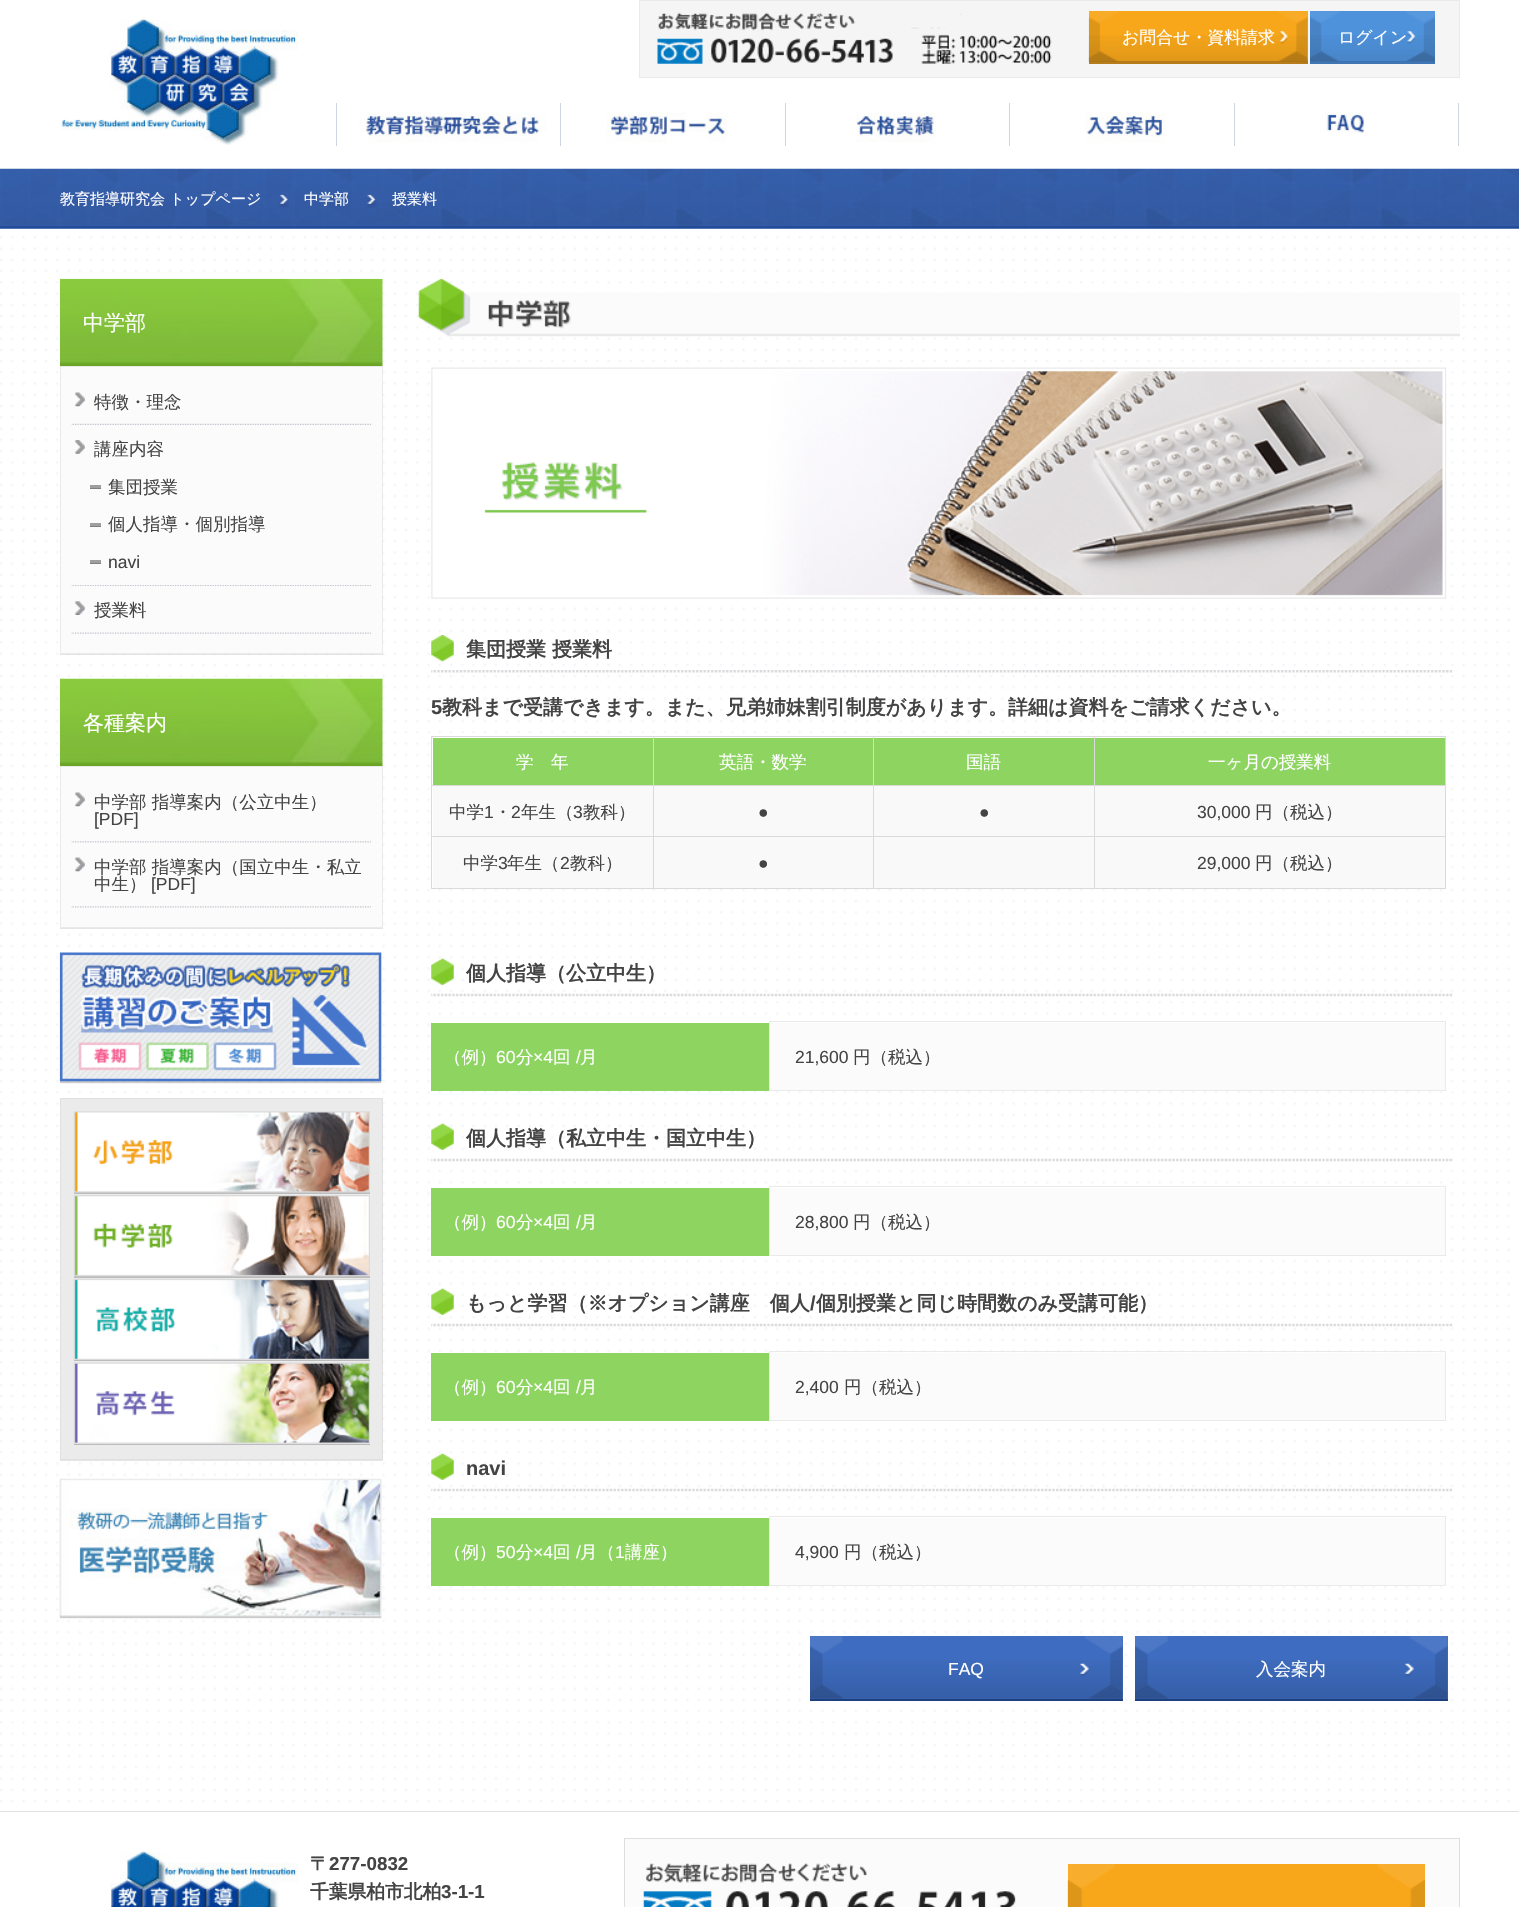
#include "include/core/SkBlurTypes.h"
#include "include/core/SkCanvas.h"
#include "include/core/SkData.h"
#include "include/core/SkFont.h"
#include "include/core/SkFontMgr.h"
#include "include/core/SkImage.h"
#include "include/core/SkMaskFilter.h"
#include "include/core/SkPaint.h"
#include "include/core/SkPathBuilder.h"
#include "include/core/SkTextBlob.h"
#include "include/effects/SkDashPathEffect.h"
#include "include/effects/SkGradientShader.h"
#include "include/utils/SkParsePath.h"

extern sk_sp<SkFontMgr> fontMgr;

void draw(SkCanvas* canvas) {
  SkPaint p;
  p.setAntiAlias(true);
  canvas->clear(SK_ColorWHITE);
  canvas->drawImageRect(SkImages::DeferredFromEncodedData(SkData::MakeFromFileName("images/1.png")), SkRect::MakeLTRB(0, 228, 1510, 1811), SkSamplingOptions());
  canvas->drawImageRect(SkImages::DeferredFromEncodedData(SkData::MakeFromFileName("images/2.png")), SkRect::MakeLTRB(60, 18, 298, 145), SkSamplingOptions());
  p.setColor(SkColorSetRGB(245, 245, 245));
  canvas->drawRect(SkRect::MakeLTRB(639.5f, 0.5f, 1459.5f, 77.5f), p);
  p.setStyle(SkPaint::kStroke_Style);
  p.setStrokeWidth(1);
  p.setColor(SkColorSetRGB(234, 234, 235));
  canvas->drawRect(SkRect::MakeLTRB(639.5f, 0.5f, 1459.5f, 77.5f), p);
  canvas->drawImageRect(SkImages::DeferredFromEncodedData(SkData::MakeFromFileName("images/3.png")), SkRect::MakeLTRB(657, 12, 1052, 64), SkSamplingOptions());
  p.setStyle(SkPaint::kFill_Style);
  p.setColor(SkColorSetRGB(182, 125, 26));
  canvas->drawPath(SkPathBuilder().moveTo(1089, 61).lineTo(1089, 64).lineTo(1308, 64).lineTo(1308, 14).lineTo(1308, 61).close().detach(), p);
  p.setColor(SkColorSetRGB(248, 167, 26));
  canvas->drawRect(SkRect::MakeLTRB(1089, 11, 1308, 61), p);
  canvas->drawImageRect(SkImages::DeferredFromEncodedData(SkData::MakeFromFileName("images/4.png")), SkRect::MakeLTRB(1088, 35, 1308, 62), SkSamplingOptions());
  canvas->drawImageRect(SkImages::DeferredFromEncodedData(SkData::MakeFromFileName("images/5.png")), SkRect::MakeLTRB(1088, 11, 1119, 62), SkSamplingOptions());
  canvas->drawImageRect(SkImages::DeferredFromEncodedData(SkData::MakeFromFileName("images/6.png")), SkRect::MakeLTRB(1278, 11, 1308, 62), SkSamplingOptions());
  p.setColor(SkColorSetRGB(64, 118, 179));
  canvas->drawRect(SkRect::MakeLTRB(1310, 61, 1435, 64), p);
  p.setColor(SkColorSetRGB(79, 146, 220));
  canvas->drawRect(SkRect::MakeLTRB(1310, 11, 1435, 61), p);
  canvas->drawImageRect(SkImages::DeferredFromEncodedData(SkData::MakeFromFileName("images/7.png")), SkRect::MakeLTRB(1310, 35, 1435, 62), SkSamplingOptions());
  canvas->drawImageRect(SkImages::DeferredFromEncodedData(SkData::MakeFromFileName("images/8.png")), SkRect::MakeLTRB(1310, 11, 1340, 62), SkSamplingOptions());
  p.setColor(SkColorSetRGB(206, 212, 225));
  canvas->drawRect(SkRect::MakeLTRB(336, 103, 337, 146), p);
  canvas->drawRect(SkRect::MakeLTRB(560, 103, 561, 146), p);
  canvas->drawImageRect(SkImages::DeferredFromEncodedData(SkData::MakeFromFileName("images/10.png")), SkRect::MakeLTRB(359, 112, 547, 143), SkSamplingOptions());
  canvas->drawRect(SkRect::MakeLTRB(785, 103, 786, 146), p);
  canvas->drawImageRect(SkImages::DeferredFromEncodedData(SkData::MakeFromFileName("images/11.png")), SkRect::MakeLTRB(606, 112, 727, 143), SkSamplingOptions());
  canvas->drawRect(SkRect::MakeLTRB(1009, 103, 1010, 146), p);
  canvas->drawImageRect(SkImages::DeferredFromEncodedData(SkData::MakeFromFileName("images/12.png")), SkRect::MakeLTRB(856, 112, 936, 143), SkSamplingOptions());
  canvas->drawRect(SkRect::MakeLTRB(1234, 103, 1235, 146), p);
  canvas->drawImageRect(SkImages::DeferredFromEncodedData(SkData::MakeFromFileName("images/13.png")), SkRect::MakeLTRB(1085, 112, 1166, 143), SkSamplingOptions());
  canvas->drawRect(SkRect::MakeLTRB(1458, 103, 1459, 146), p);
  canvas->drawImageRect(SkImages::DeferredFromEncodedData(SkData::MakeFromFileName("images/14.png")), SkRect::MakeLTRB(1325, 112, 1365, 133), SkSamplingOptions());
  canvas->drawImageRect(SkImages::DeferredFromEncodedData(SkData::MakeFromFileName("images/15.png")), SkRect::MakeLTRB(0, 168, 1519, 229), SkSamplingOptions());
  canvas->drawImageRect(SkImages::DeferredFromEncodedData(SkData::MakeFromFileName("images/16.png")), SkRect::MakeLTRB(279, 194, 289, 208), SkSamplingOptions());
  canvas->drawImageRect(SkImages::DeferredFromEncodedData(SkData::MakeFromFileName("images/17.png")), SkRect::MakeLTRB(367, 194, 377, 208), SkSamplingOptions());
  canvas->drawImageRect(SkImages::DeferredFromEncodedData(SkData::MakeFromFileName("images/18.png")), SkRect::MakeLTRB(60, 278, 383, 366), SkSamplingOptions());
  p.setColor(SkColorSetARGB(26, 0, 0, 0));
  canvas->drawPath(SkPathBuilder().moveTo(60, 654).lineTo(60, 655).lineTo(383, 655).lineTo(383, 368).lineTo(382, 368).lineTo(382, 654).close().detach(), p);
  p.setColor(SkColorSetRGB(251, 251, 251));
  canvas->drawRect(SkRect::MakeLTRB(60.5f, 366.5f, 382.5f, 653.5f), p);
  p.setStyle(SkPaint::kStroke_Style);
  p.setColor(SkColorSetRGB(234, 234, 235));
  canvas->drawRect(SkRect::MakeLTRB(60.5f, 366.5f, 382.5f, 653.5f), p);
  canvas->drawImageRect(SkImages::DeferredFromEncodedData(SkData::MakeFromFileName("images/19.png")), SkRect::MakeLTRB(71, 423, 372, 425), SkSamplingOptions());
  canvas->drawImageRect(SkImages::DeferredFromEncodedData(SkData::MakeFromFileName("images/20.png")), SkRect::MakeLTRB(75, 392, 85, 407), SkSamplingOptions());
  canvas->drawImageRect(SkImages::DeferredFromEncodedData(SkData::MakeFromFileName("images/21.png")), SkRect::MakeLTRB(71, 585, 372, 586), SkSamplingOptions());
  canvas->drawImageRect(SkImages::DeferredFromEncodedData(SkData::MakeFromFileName("images/22.png")), SkRect::MakeLTRB(75, 440, 85, 454), SkSamplingOptions());
  p.setStyle(SkPaint::kFill_Style);
  p.setColor(SkColorSetRGB(123, 127, 134));
  canvas->drawRect(SkRect::MakeLTRB(90, 488, 101, 489), p);
  p.setColor(SkColorSetRGB(157, 159, 161));
  canvas->drawRect(SkRect::MakeLTRB(90, 485, 101, 488), p);
  p.setColor(SkColorSetRGB(123, 127, 134));
  canvas->drawRect(SkRect::MakeLTRB(90, 526, 101, 527), p);
  p.setColor(SkColorSetRGB(157, 159, 161));
  canvas->drawRect(SkRect::MakeLTRB(90, 523, 101, 526), p);
  p.setColor(SkColorSetRGB(123, 127, 134));
  canvas->drawRect(SkRect::MakeLTRB(90, 563, 101, 564), p);
  p.setColor(SkColorSetRGB(157, 159, 161));
  canvas->drawRect(SkRect::MakeLTRB(90, 560, 101, 563), p);
  canvas->drawImageRect(SkImages::DeferredFromEncodedData(SkData::MakeFromFileName("images/23.png")), SkRect::MakeLTRB(71, 632, 371, 634), SkSamplingOptions());
  canvas->drawImageRect(SkImages::DeferredFromEncodedData(SkData::MakeFromFileName("images/24.png")), SkRect::MakeLTRB(75, 601, 85, 615), SkSamplingOptions());
  canvas->drawImageRect(SkImages::DeferredFromEncodedData(SkData::MakeFromFileName("images/25.png")), SkRect::MakeLTRB(60, 678, 383, 766), SkSamplingOptions());
  p.setColor(SkColorSetARGB(26, 0, 0, 0));
  canvas->drawPath(SkPathBuilder().moveTo(60, 928).lineTo(60, 929).lineTo(383, 929).lineTo(383, 768).lineTo(382, 768).lineTo(382, 928).close().detach(), p);
  p.setColor(SkColorSetRGB(251, 251, 251));
  canvas->drawRect(SkRect::MakeLTRB(60.5f, 766.5f, 382.5f, 927.5f), p);
  p.setStyle(SkPaint::kStroke_Style);
  p.setColor(SkColorSetRGB(234, 234, 235));
  canvas->drawRect(SkRect::MakeLTRB(60.5f, 766.5f, 382.5f, 927.5f), p);
  canvas->drawImageRect(SkImages::DeferredFromEncodedData(SkData::MakeFromFileName("images/26.png")), SkRect::MakeLTRB(71, 841, 371, 843), SkSamplingOptions());
  canvas->drawImageRect(SkImages::DeferredFromEncodedData(SkData::MakeFromFileName("images/20.png")), SkRect::MakeLTRB(75, 792, 85, 807), SkSamplingOptions());
  canvas->drawImageRect(SkImages::DeferredFromEncodedData(SkData::MakeFromFileName("images/26.png")), SkRect::MakeLTRB(71, 906, 371, 908), SkSamplingOptions());
  canvas->drawImageRect(SkImages::DeferredFromEncodedData(SkData::MakeFromFileName("images/20.png")), SkRect::MakeLTRB(75, 857, 85, 872), SkSamplingOptions());
  p.setStyle(SkPaint::kFill_Style);
  p.setColor(SkColorSetARGB(51, 0, 0, 0));
  p.setMaskFilter(SkMaskFilter::MakeBlur(kNormal_SkBlurStyle, 0.5f));
  canvas->drawRect(SkRect::MakeLTRB(60, 954, 381, 1083), p);
  p.setMaskFilter(nullptr);
  canvas->drawImageRect(SkImages::DeferredFromEncodedData(SkData::MakeFromFileName("images/27.png")), SkRect::MakeLTRB(60, 952, 382, 1082), SkSamplingOptions());
  p.setColor(SkColorSetARGB(26, 0, 0, 0));
  canvas->drawPath(SkPathBuilder().moveTo(60, 1460).lineTo(60, 1461).lineTo(383, 1461).lineTo(383, 1099).lineTo(382, 1099).lineTo(382, 1460).close().detach(), p);
  p.setColor(SkColorSetRGB(235, 235, 235));
  canvas->drawRect(SkRect::MakeLTRB(60.5f, 1098.5f, 382.5f, 1459.5f), p);
  p.setStyle(SkPaint::kStroke_Style);
  p.setColor(SkColorSetRGB(224, 224, 224));
  canvas->drawRect(SkRect::MakeLTRB(60.5f, 1098.5f, 382.5f, 1459.5f), p);
  p.setStyle(SkPaint::kFill_Style);
  p.setColor(SkColorSetRGB(188, 188, 188));
  canvas->drawRect(SkRect::MakeLTRB(74, 1192, 370, 1194), p);
  canvas->drawImageRect(SkImages::DeferredFromEncodedData(SkData::MakeFromFileName("images/28.png")), SkRect::MakeLTRB(73, 1111, 370, 1193), SkSamplingOptions());
  canvas->drawRect(SkRect::MakeLTRB(74, 1276, 370, 1278), p);
  canvas->drawImageRect(SkImages::DeferredFromEncodedData(SkData::MakeFromFileName("images/29.png")), SkRect::MakeLTRB(73, 1195, 370, 1277), SkSamplingOptions());
  canvas->drawRect(SkRect::MakeLTRB(74, 1360, 370, 1361), p);
  canvas->drawImageRect(SkImages::DeferredFromEncodedData(SkData::MakeFromFileName("images/30.png")), SkRect::MakeLTRB(73, 1278, 370, 1360), SkSamplingOptions());
  canvas->drawRect(SkRect::MakeLTRB(74, 1444, 370, 1445), p);
  canvas->drawImageRect(SkImages::DeferredFromEncodedData(SkData::MakeFromFileName("images/31.png")), SkRect::MakeLTRB(73, 1362, 370, 1444), SkSamplingOptions());
  p.setColor(SkColorSetARGB(51, 0, 0, 0));
  p.setMaskFilter(SkMaskFilter::MakeBlur(kNormal_SkBlurStyle, 0.5f));
  canvas->drawRect(SkRect::MakeLTRB(60, 1480, 381, 1618), p);
  p.setMaskFilter(nullptr);
  canvas->drawImageRect(SkImages::DeferredFromEncodedData(SkData::MakeFromFileName("images/32.png")), SkRect::MakeLTRB(60, 1478, 382, 1617), SkSamplingOptions());
  canvas->drawImageRect(SkImages::DeferredFromEncodedData(SkData::MakeFromFileName("images/33.png")), SkRect::MakeLTRB(418, 278, 1460, 337), SkSamplingOptions());
  canvas->drawImageRect(SkImages::DeferredFromEncodedData(SkData::MakeFromFileName("images/34.png")), SkRect::MakeLTRB(431, 367, 1447, 599), SkSamplingOptions());
  canvas->drawImageRect(SkImages::DeferredFromEncodedData(SkData::MakeFromFileName("images/35.png")), SkRect::MakeLTRB(431, 670, 1453, 673), SkSamplingOptions());
  canvas->drawImageRect(SkImages::DeferredFromEncodedData(SkData::MakeFromFileName("images/36.png")), SkRect::MakeLTRB(431, 635, 454, 662), SkSamplingOptions());
  p.setColor(SkColorSetRGB(141, 212, 97));
  canvas->drawRect(SkRect::MakeLTRB(433, 738, 653, 785), p);
  p.setColor(SkColorSetRGB(218, 218, 218));
  canvas->drawRect(SkRect::MakeLTRB(1094, 736, 1446, 737), p);
  canvas->drawRect(SkRect::MakeLTRB(1094, 785, 1446, 786), p);
  p.setColor(SkColorSetRGB(249, 249, 249));
  canvas->drawRect(SkRect::MakeLTRB(874, 786, 1094, 888), p);
  canvas->drawRect(SkRect::MakeLTRB(1095, 786, 1445, 888), p);
  p.setColor(SkColorSetRGB(218, 218, 218));
  canvas->drawRect(SkRect::MakeLTRB(1094, 836, 1446, 837), p);
  canvas->drawRect(SkRect::MakeLTRB(1445, 836, 1446, 889), p);
  canvas->drawRect(SkRect::MakeLTRB(1094, 888, 1446, 889), p);
  canvas->drawRect(SkRect::MakeLTRB(1094, 836, 1095, 889), p);
  canvas->drawRect(SkRect::MakeLTRB(873, 836, 1095, 837), p);
  canvas->drawRect(SkRect::MakeLTRB(1094, 785, 1095, 838), p);
  canvas->drawRect(SkRect::MakeLTRB(873, 785, 1095, 786), p);
  canvas->drawRect(SkRect::MakeLTRB(1094, 736, 1095, 786), p);
  canvas->drawRect(SkRect::MakeLTRB(873, 736, 1095, 737), p);
  p.setColor(SkColorSetRGB(249, 249, 249));
  canvas->drawRect(SkRect::MakeLTRB(654, 786, 873, 888), p);
  p.setColor(SkColorSetRGB(218, 218, 218));
  canvas->drawRect(SkRect::MakeLTRB(873, 888, 1095, 889), p);
  canvas->drawRect(SkRect::MakeLTRB(873, 836, 874, 889), p);
  canvas->drawRect(SkRect::MakeLTRB(653, 836, 874, 837), p);
  canvas->drawRect(SkRect::MakeLTRB(873, 785, 874, 838), p);
  canvas->drawRect(SkRect::MakeLTRB(653, 785, 874, 786), p);
  canvas->drawRect(SkRect::MakeLTRB(873, 736, 874, 786), p);
  canvas->drawRect(SkRect::MakeLTRB(653, 736, 874, 737), p);
  p.setColor(SkColorSetRGB(249, 249, 249));
  canvas->drawRect(SkRect::MakeLTRB(433, 786, 653, 888), p);
  p.setColor(SkColorSetRGB(218, 218, 218));
  canvas->drawRect(SkRect::MakeLTRB(653, 888, 874, 889), p);
  canvas->drawRect(SkRect::MakeLTRB(653, 836, 654, 889), p);
  canvas->drawRect(SkRect::MakeLTRB(431, 836, 654, 837), p);
  canvas->drawRect(SkRect::MakeLTRB(653, 785, 654, 838), p);
  canvas->drawRect(SkRect::MakeLTRB(431, 785, 654, 786), p);
  canvas->drawRect(SkRect::MakeLTRB(653, 736, 654, 786), p);
  canvas->drawRect(SkRect::MakeLTRB(431, 736, 654, 737), p);
  canvas->drawRect(SkRect::MakeLTRB(431, 888, 654, 889), p);
  canvas->drawRect(SkRect::MakeLTRB(431, 836, 432, 889), p);
  canvas->drawRect(SkRect::MakeLTRB(431, 785, 432, 838), p);
  canvas->drawRect(SkRect::MakeLTRB(431, 736, 432, 786), p);
  p.setColor(SkColorSetRGB(141, 212, 97));
  canvas->drawRect(SkRect::MakeLTRB(654, 738, 873, 785), p);
  canvas->drawRect(SkRect::MakeLTRB(874, 738, 1094, 785), p);
  canvas->drawRect(SkRect::MakeLTRB(1095, 738, 1445, 785), p);
  p.setColor(SkColorSetRGB(218, 218, 218));
  canvas->drawRect(SkRect::MakeLTRB(1445, 785, 1446, 838), p);
  canvas->drawRect(SkRect::MakeLTRB(1445, 736, 1446, 786), p);
  canvas->drawImageRect(SkImages::DeferredFromEncodedData(SkData::MakeFromFileName("images/37.png")), SkRect::MakeLTRB(431, 993, 1453, 997), SkSamplingOptions());
  canvas->drawImageRect(SkImages::DeferredFromEncodedData(SkData::MakeFromFileName("images/38.png")), SkRect::MakeLTRB(431, 958, 454, 985), SkSamplingOptions());
  p.setColor(SkColorSetRGB(141, 212, 97));
  canvas->drawRect(SkRect::MakeLTRB(431, 1023, 769, 1091), p);
  p.setColor(SkColorSetRGB(251, 251, 251));
  canvas->drawRect(SkRect::MakeLTRB(770, 1023, 1445, 1090), p);
  p.setColor(SkColorSetRGB(234, 234, 235));
  canvas->drawRect(SkRect::MakeLTRB(769, 1021, 1446, 1022), p);
  canvas->drawRect(SkRect::MakeLTRB(1445, 1021, 1446, 1091), p);
  canvas->drawRect(SkRect::MakeLTRB(769, 1090, 1446, 1091), p);
  canvas->drawRect(SkRect::MakeLTRB(769, 1021, 770, 1091), p);
  canvas->drawImageRect(SkImages::DeferredFromEncodedData(SkData::MakeFromFileName("images/39.png")), SkRect::MakeLTRB(431, 1158, 1452, 1162), SkSamplingOptions());
  canvas->drawImageRect(SkImages::DeferredFromEncodedData(SkData::MakeFromFileName("images/40.png")), SkRect::MakeLTRB(431, 1123, 454, 1150), SkSamplingOptions());
  p.setColor(SkColorSetRGB(141, 212, 97));
  canvas->drawRect(SkRect::MakeLTRB(431, 1188, 769, 1256), p);
  p.setColor(SkColorSetRGB(251, 251, 251));
  canvas->drawRect(SkRect::MakeLTRB(770, 1188, 1445, 1255), p);
  p.setColor(SkColorSetRGB(234, 234, 235));
  canvas->drawRect(SkRect::MakeLTRB(769, 1186, 1446, 1187), p);
  canvas->drawRect(SkRect::MakeLTRB(1445, 1186, 1446, 1256), p);
  canvas->drawRect(SkRect::MakeLTRB(769, 1255, 1446, 1256), p);
  canvas->drawRect(SkRect::MakeLTRB(769, 1186, 770, 1256), p);
  canvas->drawImageRect(SkImages::DeferredFromEncodedData(SkData::MakeFromFileName("images/37.png")), SkRect::MakeLTRB(431, 1323, 1453, 1327), SkSamplingOptions());
  canvas->drawImageRect(SkImages::DeferredFromEncodedData(SkData::MakeFromFileName("images/41.png")), SkRect::MakeLTRB(431, 1288, 454, 1315), SkSamplingOptions());
  p.setColor(SkColorSetRGB(141, 212, 97));
  canvas->drawRect(SkRect::MakeLTRB(431, 1353, 769, 1421), p);
  p.setColor(SkColorSetRGB(251, 251, 251));
  canvas->drawRect(SkRect::MakeLTRB(770, 1353, 1445, 1420), p);
  p.setColor(SkColorSetRGB(234, 234, 235));
  canvas->drawRect(SkRect::MakeLTRB(769, 1351, 1446, 1352), p);
  canvas->drawRect(SkRect::MakeLTRB(1445, 1351, 1446, 1421), p);
  canvas->drawRect(SkRect::MakeLTRB(769, 1420, 1446, 1421), p);
  canvas->drawRect(SkRect::MakeLTRB(769, 1351, 770, 1421), p);
  canvas->drawImageRect(SkImages::DeferredFromEncodedData(SkData::MakeFromFileName("images/37.png")), SkRect::MakeLTRB(431, 1488, 1453, 1492), SkSamplingOptions());
  canvas->drawImageRect(SkImages::DeferredFromEncodedData(SkData::MakeFromFileName("images/38.png")), SkRect::MakeLTRB(431, 1453, 454, 1480), SkSamplingOptions());
  p.setColor(SkColorSetRGB(141, 212, 97));
  canvas->drawRect(SkRect::MakeLTRB(431, 1518, 769, 1586), p);
  p.setColor(SkColorSetRGB(251, 251, 251));
  canvas->drawRect(SkRect::MakeLTRB(770, 1518, 1445, 1585), p);
  p.setColor(SkColorSetRGB(234, 234, 235));
  canvas->drawRect(SkRect::MakeLTRB(769, 1516, 1446, 1517), p);
  canvas->drawRect(SkRect::MakeLTRB(1445, 1516, 1446, 1586), p);
  canvas->drawRect(SkRect::MakeLTRB(769, 1585, 1446, 1586), p);
  canvas->drawRect(SkRect::MakeLTRB(769, 1516, 770, 1586), p);
  p.setColor(SkColorSetRGB(29, 64, 128));
  canvas->drawPath(SkPathBuilder().moveTo(810, 1699).lineTo(810, 1701).lineTo(1123, 1701).lineTo(1123, 1639).lineTo(1122, 1639).lineTo(1122, 1699).close().detach(), p);
  p.setColor(SkColorSetRGB(62, 108, 192));
  canvas->drawRect(SkRect::MakeLTRB(810, 1636, 1123, 1699), p);
  canvas->drawImageRect(SkImages::DeferredFromEncodedData(SkData::MakeFromFileName("images/42.png")), SkRect::MakeLTRB(810, 1660, 1123, 1699), SkSamplingOptions());
  canvas->drawImageRect(SkImages::DeferredFromEncodedData(SkData::MakeFromFileName("images/43.png")), SkRect::MakeLTRB(810, 1636, 843, 1699), SkSamplingOptions());
  canvas->drawImageRect(SkImages::DeferredFromEncodedData(SkData::MakeFromFileName("images/44.png")), SkRect::MakeLTRB(1079, 1636, 1123, 1699), SkSamplingOptions());
  p.setColor(SkColorSetRGB(29, 64, 128));
  canvas->drawPath(SkPathBuilder().moveTo(1135, 1699).lineTo(1135, 1701).lineTo(1448, 1701).lineTo(1448, 1639).lineTo(1448, 1699).close().detach(), p);
  p.setColor(SkColorSetRGB(62, 108, 192));
  canvas->drawRect(SkRect::MakeLTRB(1135, 1636, 1448, 1699), p);
  canvas->drawImageRect(SkImages::DeferredFromEncodedData(SkData::MakeFromFileName("images/42.png")), SkRect::MakeLTRB(1135, 1660, 1448, 1699), SkSamplingOptions());
  canvas->drawImageRect(SkImages::DeferredFromEncodedData(SkData::MakeFromFileName("images/43.png")), SkRect::MakeLTRB(1135, 1636, 1168, 1699), SkSamplingOptions());
  canvas->drawImageRect(SkImages::DeferredFromEncodedData(SkData::MakeFromFileName("images/44.png")), SkRect::MakeLTRB(1404, 1636, 1448, 1699), SkSamplingOptions());
  p.setColor(SkColorSetRGB(225, 225, 229));
  canvas->drawRect(SkRect::MakeLTRB(0, 1811, 1519, 1812), p);
  canvas->drawImageRect(SkImages::DeferredFromEncodedData(SkData::MakeFromFileName("images/45.png")), SkRect::MakeLTRB(110, 1851, 298, 1907), SkSamplingOptions());
  p.setColor(SkColorSetRGB(251, 251, 251));
  canvas->drawRect(SkRect::MakeLTRB(624.5f, 1838.5f, 1459.5f, 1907.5f), p);
  p.setStyle(SkPaint::kStroke_Style);
  p.setColor(SkColorSetRGB(222, 222, 226));
  canvas->drawRect(SkRect::MakeLTRB(624.5f, 1838.5f, 1459.5f, 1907.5f), p);
  canvas->drawImageRect(SkImages::DeferredFromEncodedData(SkData::MakeFromFileName("images/46.png")), SkRect::MakeLTRB(643, 1863, 1016, 1907), SkSamplingOptions());
  p.setStyle(SkPaint::kFill_Style);
  p.setColor(SkColorSetRGB(248, 167, 26));
  canvas->drawRect(SkRect::MakeLTRB(1068, 1864, 1425, 1907), p);
  canvas->drawImageRect(SkImages::DeferredFromEncodedData(SkData::MakeFromFileName("images/47.png")), SkRect::MakeLTRB(1067, 1864, 1115, 1907), SkSamplingOptions());
  canvas->drawImageRect(SkImages::DeferredFromEncodedData(SkData::MakeFromFileName("images/48.png")), SkRect::MakeLTRB(1377, 1864, 1425, 1907), SkSamplingOptions());
  SkFont font1(fontMgr->matchFamilyStyle("WenQuanYi Zen Hei", SkFontStyle(500, SkFontStyle::kNormal_Width, SkFontStyle::kUpright_Slant)), 16.9f);
  font1.setSubpixel(true);
  p.setColor(SK_ColorWHITE);
  canvas->drawString("お問合せ・資料請求", 1122, 43, font1, p);
  canvas->drawString("ログイン", 1338, 43, font1, p);
  canvas->drawImageRect(SkImages::DeferredFromEncodedData(SkData::MakeFromFileName("images/9.png")), SkRect::MakeLTRB(1405, 11, 1435, 62), SkSamplingOptions());
  SkFont font2(fontMgr->matchFamilyStyle("WenQuanYi Zen Hei", SkFontStyle(500, SkFontStyle::kNormal_Width, SkFontStyle::kUpright_Slant)), 15);
  font2.setSubpixel(true);
  canvas->drawString("教育指導研究会 トップページ", 60, 204, font2, p);
  canvas->drawString("中学部", 304, 204, font2, p);
  canvas->drawString("授業料", 392, 204, font2, p);
  SkFont font3(fontMgr->matchFamilyStyle("WenQuanYi Zen Hei", SkFontStyle(500, SkFontStyle::kNormal_Width, SkFontStyle::kUpright_Slant)), 21);
  font3.setSubpixel(true);
  canvas->drawString("中学部", 83, 330, font3, p);
  SkFont font4(fontMgr->matchFamilyStyle("WenQuanYi Zen Hei", SkFontStyle(500, SkFontStyle::kNormal_Width, SkFontStyle::kUpright_Slant)), 17.5f);
  font4.setSubpixel(true);
  p.setColor(SkColorSetRGB(68, 68, 68));
  canvas->drawString("特徴・理念", 94, 408, font4, p);
  canvas->drawString("講座内容", 94, 455, font4, p);
  canvas->drawString("集団授業", 108, 493, font4, p);
  canvas->drawString("個人指導・個別指導", 108, 530, font4, p);
  SkFont font5(fontMgr->matchFamilyStyle("Liberation Sans", SkFontStyle::Normal()), 17.5f);
  font5.setSubpixel(true);
  canvas->drawString("navi", 108, 568, font5, p);
  canvas->drawString("授業料", 94, 616, font4, p);
  p.setColor(SK_ColorWHITE);
  canvas->drawString("各種案内", 83, 730, font3, p);
  p.setColor(SkColorSetRGB(68, 68, 68));
  canvas->drawString("中学部 指導案内（公立中生）", 94, 808, font4, p);
  canvas->drawString("[PDF]", 94, 825, font5, p);
  canvas->drawString("中学部 指導案内（国立中生・私立", 94, 873, font4, p);
  canvas->drawString("中生）", 94, 890, font4, p);
  canvas->drawString("[PDF]", 151, 890, font5, p);
  SkFont font6(fontMgr->matchFamilyStyle("WenQuanYi Zen Hei", SkFontStyle::Bold()), 20);
  font6.setSubpixel(true);
  canvas->drawString("集団授業 授業料", 466, 656, font6, p);
  SkFont font7(fontMgr->matchFamilyStyle("Liberation Sans", SkFontStyle::Bold()), 20);
  font7.setSubpixel(true);
  canvas->drawString("5", 431, 714, font7, p);
  canvas->drawString("教科まで受講できます。また、兄弟姉妹割引制度があります。詳細は資料をご請求ください。", 442, 714, font6, p);
  p.setColor(SK_ColorWHITE);
  canvas->drawString("学　年", 516, 768, font4, p);
  canvas->drawString("英語・数学", 719, 768, font4, p);
  canvas->drawString("国語", 966, 768, font4, p);
  canvas->drawString("一ヶ月の授業料", 1208, 768, font4, p);
  p.setColor(SkColorSetRGB(68, 68, 68));
  canvas->drawString("中学", 449, 818, font4, p);
  canvas->drawString("1", 484, 818, font5, p);
  canvas->drawString("・", 494, 818, font4, p);
  canvas->drawString("2", 511, 818, font5, p);
  canvas->drawString("年生（", 521, 818, font4, p);
  canvas->drawString("3", 573, 818, font5, p);
  canvas->drawString("教科）", 583, 818, font4, p);
  canvas->drawString("●", 758, 818, font5, p);
  canvas->drawString("●", 979, 818, font5, p);
  canvas->drawString("30,000", 1197, 818, font5, p);
  canvas->drawString("円（税込）", 1255, 818, font4, p);
  canvas->drawString("中学", 463, 869, font4, p);
  canvas->drawString("3", 498, 869, font5, p);
  canvas->drawString("年生（", 507, 869, font4, p);
  canvas->drawString("2", 560, 869, font5, p);
  canvas->drawString("教科）", 570, 869, font4, p);
  canvas->drawString("●", 758, 869, font5, p);
  canvas->drawString("29,000", 1197, 869, font5, p);
  canvas->drawString("円（税込）", 1255, 869, font4, p);
  canvas->drawString("個人指導（公立中生）", 466, 980, font6, p);
  p.setColor(SK_ColorWHITE);
  canvas->drawString("（例）", 444, 1063, font4, p);
  canvas->drawString("60", 496, 1063, font5, p);
  canvas->drawString("分", 516, 1063, font4, p);
  canvas->drawString("×4", 533, 1063, font5, p);
  canvas->drawString("回", 553, 1063, font4, p);
  canvas->drawString("/", 576, 1063, font5, p);
  canvas->drawString("月", 580, 1063, font4, p);
  p.setColor(SkColorSetRGB(68, 68, 68));
  canvas->drawString("21,600", 795, 1063, font5, p);
  canvas->drawString("円（税込）", 853, 1063, font4, p);
  canvas->drawString("個人指導（私立中生・国立中生）", 466, 1145, font6, p);
  p.setColor(SK_ColorWHITE);
  canvas->drawString("（例）", 444, 1228, font4, p);
  canvas->drawString("60", 496, 1228, font5, p);
  canvas->drawString("分", 516, 1228, font4, p);
  canvas->drawString("×4", 533, 1228, font5, p);
  canvas->drawString("回", 553, 1228, font4, p);
  canvas->drawString("/", 576, 1228, font5, p);
  canvas->drawString("月", 580, 1228, font4, p);
  p.setColor(SkColorSetRGB(68, 68, 68));
  canvas->drawString("28,800", 795, 1228, font5, p);
  canvas->drawString("円（税込）", 853, 1228, font4, p);
  canvas->drawString("もっと学習（※オプション講座　個人", 466, 1310, font6, p);
  canvas->drawString("/", 810, 1310, font7, p);
  canvas->drawString("個別授業と同じ時間数のみ受講可能）", 816, 1310, font6, p);
  p.setColor(SK_ColorWHITE);
  canvas->drawString("（例）", 444, 1393, font4, p);
  canvas->drawString("60", 496, 1393, font5, p);
  canvas->drawString("分", 516, 1393, font4, p);
  canvas->drawString("×4", 533, 1393, font5, p);
  canvas->drawString("回", 553, 1393, font4, p);
  canvas->drawString("/", 576, 1393, font5, p);
  canvas->drawString("月", 580, 1393, font4, p);
  p.setColor(SkColorSetRGB(68, 68, 68));
  canvas->drawString("2,400", 795, 1393, font5, p);
  canvas->drawString("円（税込）", 844, 1393, font4, p);
  canvas->drawString("navi", 466, 1475, font7, p);
  p.setColor(SK_ColorWHITE);
  canvas->drawString("（例）", 444, 1558, font4, p);
  canvas->drawString("50", 496, 1558, font5, p);
  canvas->drawString("分", 516, 1558, font4, p);
  canvas->drawString("×4", 533, 1558, font5, p);
  canvas->drawString("回", 553, 1558, font4, p);
  canvas->drawString("/", 576, 1558, font5, p);
  canvas->drawString("月（", 580, 1558, font4, p);
  canvas->drawString("1", 615, 1558, font5, p);
  canvas->drawString("講座）", 625, 1558, font4, p);
  p.setColor(SkColorSetRGB(68, 68, 68));
  canvas->drawString("4,900", 795, 1558, font5, p);
  canvas->drawString("円（税込）", 844, 1558, font4, p);
  p.setColor(SK_ColorWHITE);
  canvas->drawString("FAQ", 948, 1675, font5, p);
  canvas->drawString("入会案内", 1256, 1675, font4, p);
  SkFont font8(fontMgr->matchFamilyStyle("WenQuanYi Zen Hei", SkFontStyle::Bold()), 18.75f);
  font8.setSubpixel(true);
  p.setColor(SkColorSetRGB(68, 68, 68));
  canvas->drawString("〒", 310, 1870, font8, p);
  SkFont font9(fontMgr->matchFamilyStyle("Liberation Sans", SkFontStyle::Bold()), 18.75f);
  font9.setSubpixel(true);
  canvas->drawString("277-0832", 329, 1870, font9, p);
  canvas->drawString("千葉県柏市北柏", 310, 1898, font8, p);
  canvas->drawString("3-1-1", 441, 1898, font9, p);
}
